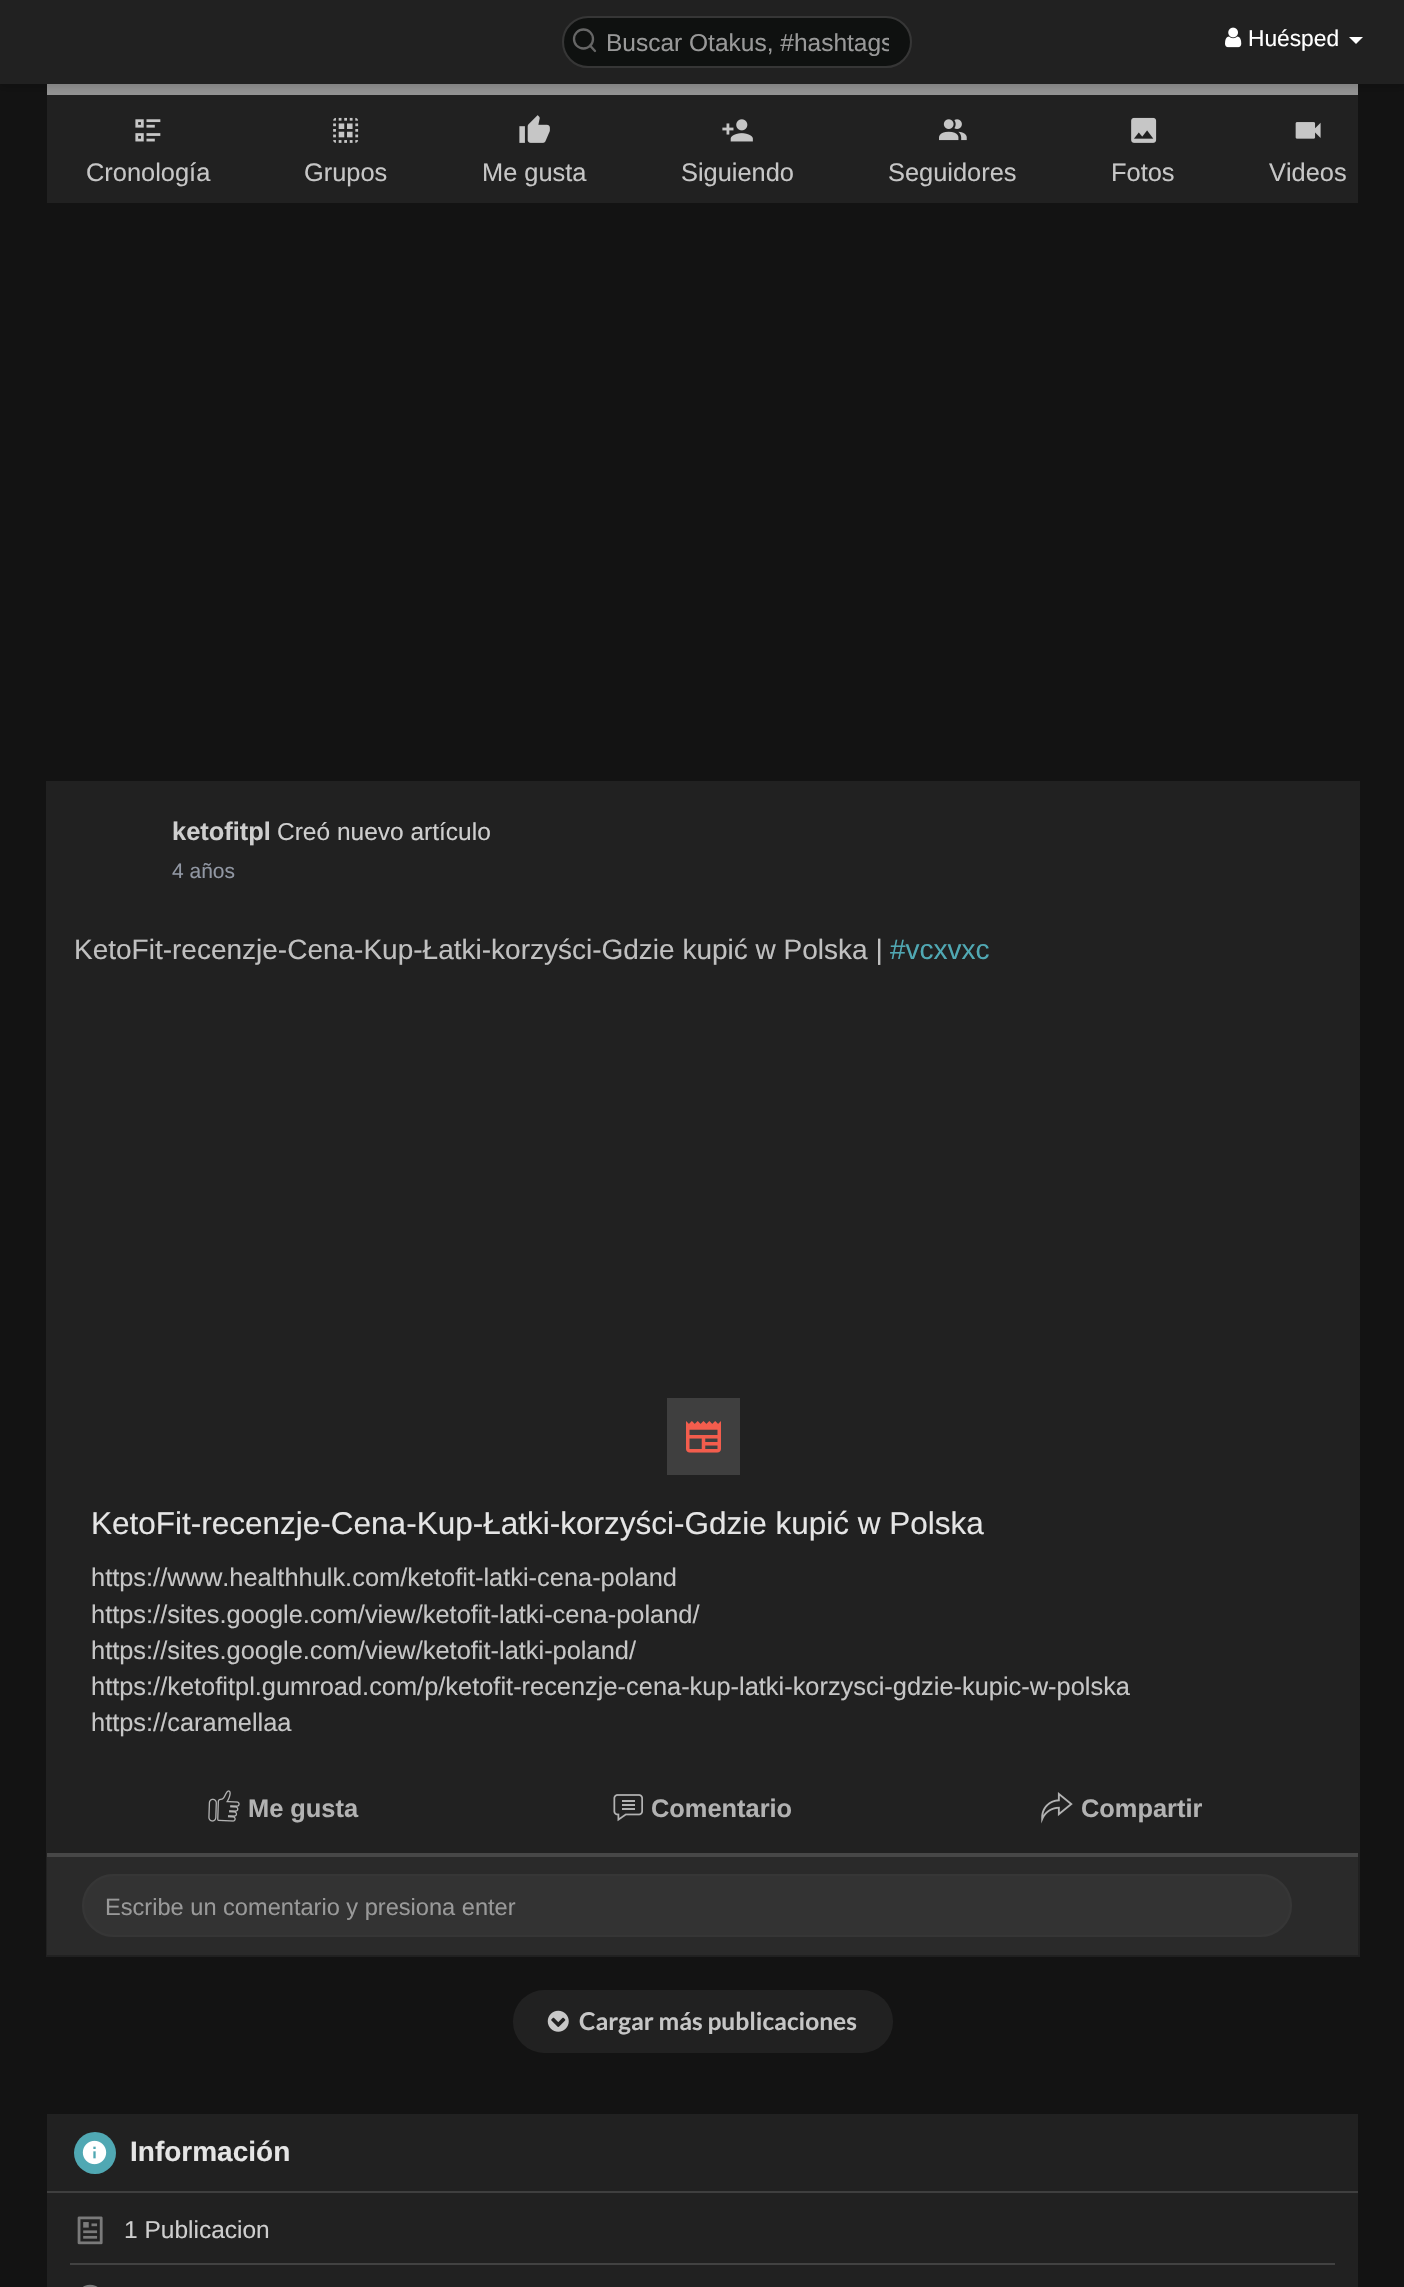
#include "include/core/SkBlurTypes.h"
#include "include/core/SkCanvas.h"
#include "include/core/SkData.h"
#include "include/core/SkFont.h"
#include "include/core/SkFontMgr.h"
#include "include/core/SkImage.h"
#include "include/core/SkMaskFilter.h"
#include "include/core/SkPaint.h"
#include "include/core/SkPathBuilder.h"
#include "include/core/SkTextBlob.h"
#include "include/effects/SkDashPathEffect.h"
#include "include/effects/SkGradientShader.h"
#include "include/utils/SkParsePath.h"

extern sk_sp<SkFontMgr> fontMgr;

void draw(SkCanvas* canvas) {
  SkPaint p;
  p.setAntiAlias(true);
  canvas->clear(SkColorSetRGB(19, 19, 19));
  p.setColor(SK_ColorWHITE);
  canvas->drawRect(SkRect::MakeLTRB(47, 84, 1358, 95), p);
  {
    const SkColor colors[] = {SkColorSetARGB(0, 0, 0, 0), SkColorSetARGB(115, 0, 0, 0)};
    const float stops[] = {0, 1};
    const SkPoint ends[] = {{703, -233}, {703, 117}};
    p.setShader(SkGradientShader::MakeLinear(ends, colors, stops, 2, SkTileMode::kClamp));
    p.setAlpha(255);
  }
  canvas->drawRect(SkRect::MakeLTRB(47, 84, 1358, 95), p);
  p.setShader(nullptr);
  p.setColor(SkColorSetRGB(33, 33, 33));
  canvas->drawRect(SkRect::MakeLTRB(47, 95, 1358, 203), p);
  p.setColor(SkColorSetARGB(38, 0, 0, 0));
  p.setMaskFilter(SkMaskFilter::MakeBlur(kNormal_SkBlurStyle, 3.5f));
  canvas->drawRect(SkRect::MakeLTRB(0, 4, 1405, 88), p);
  p.setMaskFilter(nullptr);
  p.setColor(SkColorSetRGB(33, 33, 33));
  canvas->drawRect(SkRect::MakeLTRB(0, 0, 1404, 84), p);
  p.setColor(SkColorSetRGB(15, 17, 16));
  canvas->drawRoundRect(SkRect::MakeLTRB(563, 17, 911, 67), 25, 25, p);
  p.setStyle(SkPaint::kStroke_Style);
  p.setStrokeWidth(2);
  p.setColor(SkColorSetRGB(54, 54, 54));
  canvas->drawRoundRect(SkRect::MakeLTRB(563, 17, 911, 67), 25, 25, p);
  p.setStrokeWidth(2.3f);
  p.setColor(SkColorSetRGB(102, 102, 102));
  canvas->drawCircle(583.5f, 39, 9.5f, p);
  p.setStrokeCap(SkPaint::kRound_Cap);
  p.setStrokeJoin(SkPaint::kRound_Join);
  canvas->drawPath(SkPathBuilder().moveTo(595, 51).lineTo(590, 45.5f).detach(), p);
  canvas->drawImageRect(SkImages::DeferredFromEncodedData(SkData::MakeFromFileName("images/1.png")), SkRect::MakeLTRB(1225, 27, 1242, 48), SkSamplingOptions());
  p.setStyle(SkPaint::kFill_Style);
  p.setColor(SK_ColorWHITE);
  canvas->drawPath(SkPathBuilder().moveTo(1349, 37).lineTo(1363, 37).lineTo(1356, 44).close().detach(), p);
  canvas->drawImageRect(SkImages::DeferredFromEncodedData(SkData::MakeFromFileName("images/2.png")), SkRect::MakeLTRB(135, 119, 161, 142), SkSamplingOptions());
  canvas->drawImageRect(SkImages::DeferredFromEncodedData(SkData::MakeFromFileName("images/3.png")), SkRect::MakeLTRB(333, 117, 359, 143), SkSamplingOptions());
  canvas->drawImageRect(SkImages::DeferredFromEncodedData(SkData::MakeFromFileName("images/4.png")), SkRect::MakeLTRB(519, 115, 550, 143), SkSamplingOptions());
  canvas->drawImageRect(SkImages::DeferredFromEncodedData(SkData::MakeFromFileName("images/5.png")), SkRect::MakeLTRB(722, 119, 753, 142), SkSamplingOptions());
  canvas->drawImageRect(SkImages::DeferredFromEncodedData(SkData::MakeFromFileName("images/6.png")), SkRect::MakeLTRB(939, 119, 967, 141), SkSamplingOptions());
  canvas->drawImageRect(SkImages::DeferredFromEncodedData(SkData::MakeFromFileName("images/7.png")), SkRect::MakeLTRB(1131, 117, 1157, 143), SkSamplingOptions());
  canvas->drawImageRect(SkImages::DeferredFromEncodedData(SkData::MakeFromFileName("images/8.png")), SkRect::MakeLTRB(1295, 122, 1321, 139), SkSamplingOptions());
  p.setStyle(SkPaint::kStroke_Style);
  p.setStrokeWidth(2);
  p.setStrokeCap(SkPaint::kButt_Cap);
  p.setStrokeJoin(SkPaint::kMiter_Join);
  p.setColor(SkColorSetRGB(33, 33, 33));
  canvas->drawRect(SkRect::MakeLTRB(47, 782, 1359, 1956), p);
  p.setStyle(SkPaint::kFill_Style);
  canvas->drawRect(SkRect::MakeLTRB(48, 783, 1358, 1853), p);
  p.setColor(SkColorSetRGB(63, 63, 63));
  canvas->drawRect(SkRect::MakeLTRB(667, 1398, 740, 1475), p);
  canvas->drawImageRect(SkImages::DeferredFromEncodedData(SkData::MakeFromFileName("images/9.png")), SkRect::MakeLTRB(686, 1421, 721, 1453), SkSamplingOptions());
  canvas->drawImageRect(SkImages::DeferredFromEncodedData(SkData::MakeFromFileName("images/10.png")), SkRect::MakeLTRB(208, 1790, 240, 1822), SkSamplingOptions());
  canvas->drawImageRect(SkImages::DeferredFromEncodedData(SkData::MakeFromFileName("images/11.png")), SkRect::MakeLTRB(613, 1794, 643, 1822), SkSamplingOptions());
  canvas->drawImageRect(SkImages::DeferredFromEncodedData(SkData::MakeFromFileName("images/12.png")), SkRect::MakeLTRB(1041, 1792, 1073, 1824), SkSamplingOptions());
  p.setColor(SkColorSetRGB(42, 42, 42));
  canvas->drawRect(SkRect::MakeLTRB(47, 1857, 1358, 1955), p);
  p.setColor(SkColorSetRGB(71, 71, 71));
  canvas->drawRect(SkRect::MakeLTRB(47, 1853, 1358, 1857), p);
  p.setColor(SkColorSetRGB(51, 51, 51));
  canvas->drawRoundRect(SkRect::MakeLTRB(83, 1875, 1291, 1936), 30.5f, 30.5f, p);
  p.setStyle(SkPaint::kStroke_Style);
  p.setColor(SkColorSetRGB(54, 54, 54));
  canvas->drawRoundRect(SkRect::MakeLTRB(83, 1875, 1291, 1936), 30.5f, 30.5f, p);
  p.setStyle(SkPaint::kFill_Style);
  p.setColor(SkColorSetRGB(33, 33, 33));
  canvas->drawRoundRect(SkRect::MakeLTRB(513, 1990, 893, 2053), 31.5f, 31.5f, p);
  canvas->drawImageRect(SkImages::DeferredFromEncodedData(SkData::MakeFromFileName("images/13.png")), SkRect::MakeLTRB(547, 2010, 569, 2032), SkSamplingOptions());
  canvas->drawRect(SkRect::MakeLTRB(47, 2114, 1358, 2287), p);
  p.setColor(SkColorSetRGB(63, 63, 63));
  canvas->drawRect(SkRect::MakeLTRB(47, 2191, 1358, 2193), p);
  p.setColor(SkColorSetRGB(80, 168, 179));
  canvas->drawCircle(95, 2153, 21, p);
  canvas->drawImageRect(SkImages::DeferredFromEncodedData(SkData::MakeFromFileName("images/14.png")), SkRect::MakeLTRB(82, 2140, 107, 2165), SkSamplingOptions());
  canvas->drawImageRect(SkImages::DeferredFromEncodedData(SkData::MakeFromFileName("images/15.png")), SkRect::MakeLTRB(77, 2216, 103, 2245), SkSamplingOptions());
  p.setColor(SkColorSetRGB(66, 66, 66));
  canvas->drawRect(SkRect::MakeLTRB(70, 2263, 1335, 2265), p);
  canvas->drawImageRect(SkImages::DeferredFromEncodedData(SkData::MakeFromFileName("images/16.png")), SkRect::MakeLTRB(83, 2284, 98, 2287), SkSamplingOptions());
  canvas->save();
  canvas->clipRect(SkRect::MakeLTRB(607, 28, 889, 56));
  SkFont font1(fontMgr->matchFamilyStyle("Liberation Sans", SkFontStyle::Normal()), 24.5f);
  font1.setSubpixel(true);
  p.setColor(SkColorSetRGB(153, 153, 153));
  canvas->drawString("Buscar Otakus, #hashtags", 606, 51, font1, p);
  canvas->restore();
  SkFont font2(fontMgr->matchFamilyStyle("Liberation Sans", SkFontStyle::Normal()), 22.75f);
  font2.setSubpixel(true);
  p.setColor(SK_ColorWHITE);
  canvas->drawString("Huésped", 1248, 46, font2, p);
  SkFont font3(fontMgr->matchFamilyStyle("Liberation Sans", SkFontStyle::Normal()), 25.4f);
  font3.setSubpixel(true);
  p.setColor(SkColorSetRGB(198, 198, 198));
  canvas->drawString("Cronología", 86, 181, font3, p);
  canvas->drawString("Grupos", 304, 181, font3, p);
  canvas->drawString("Me gusta", 482, 181, font3, p);
  canvas->drawString("Siguiendo", 681, 181, font3, p);
  canvas->drawString("Seguidores", 888, 181, font3, p);
  canvas->drawString("Fotos", 1111, 181, font3, p);
  canvas->drawString("Videos", 1269, 181, font3, p);
  SkFont font4(fontMgr->matchFamilyStyle("Liberation Sans", SkFontStyle::Bold()), 25.4f);
  font4.setSubpixel(true);
  p.setColor(SkColorSetRGB(206, 206, 206));
  canvas->drawString("ketofitpl", 172, 840, font4, p);
  canvas->drawString("Creó nuevo artículo", 277, 840, font1, p);
  SkFont font5(fontMgr->matchFamilyStyle("Liberation Sans", SkFontStyle::Normal()), 21);
  font5.setSubpixel(true);
  p.setColor(SkColorSetRGB(145, 151, 163));
  canvas->drawString("4 años", 172, 878, font5, p);
  SkFont font6(fontMgr->matchFamilyStyle("Liberation Sans", SkFontStyle::Normal()), 28);
  font6.setSubpixel(true);
  p.setColor(SkColorSetRGB(192, 192, 192));
  canvas->drawString("KetoFit-recenzje-Cena-Kup-Łatki-korzyści-Gdzie kupić w Polska |", 74, 959, font6, p);
  p.setColor(SkColorSetRGB(80, 168, 179));
  canvas->drawString("#vcxvxc", 890, 959, font6, p);
  SkFont font7(fontMgr->matchFamilyStyle("Liberation Sans", SkFontStyle::Normal()), 31.5f);
  font7.setSubpixel(true);
  p.setColor(SkColorSetRGB(229, 229, 229));
  canvas->drawString("KetoFit-recenzje-Cena-Kup-Łatki-korzyści-Gdzie kupić w Polska", 91, 1534, font7, p);
  p.setColor(SkColorSetRGB(198, 198, 198));
  canvas->drawString("https://www.healthhulk.com/ketofit-latki-cena-poland", 91, 1586, font3, p);
  canvas->drawString("https://sites.google.com/view/ketofit-latki-cena-poland/", 91, 1623, font3, p);
  canvas->drawString("https://sites.google.com/view/ketofit-latki-poland/", 91, 1659, font3, p);
  canvas->drawString("https://ketofitpl.gumroad.com/p/ketofit-recenzje-cena-kup-latki-korzysci-gdzie-kupic-w-polska", 91, 1695, font3, p);
  canvas->drawString("https://caramellaa", 91, 1731, font3, p);
  p.setColor(SkColorSetRGB(178, 178, 178));
  canvas->drawString("Me gusta", 248, 1817, font4, p);
  canvas->drawString("Comentario", 651, 1817, font4, p);
  canvas->drawString("Compartir", 1081, 1817, font4, p);
  SkFont font8(fontMgr->matchFamilyStyle("Liberation Sans", SkFontStyle::Normal()), 23.6f);
  font8.setSubpixel(true);
  p.setColor(SkColorSetRGB(153, 153, 153));
  canvas->drawString("Escribe un comentario y presiona enter", 105, 1915, font8, p);
  SkFont font9(fontMgr->matchFamilyStyle("Lato", SkFontStyle::Bold()), 24.5f);
  font9.setSubpixel(true);
  p.setColor(SkColorSetRGB(198, 198, 198));
  canvas->drawString("Cargar más publicaciones", 579, 2030, font9, p);
  SkFont font10(fontMgr->matchFamilyStyle("Liberation Sans", SkFontStyle::Bold()), 28);
  font10.setSubpixel(true);
  p.setColor(SkColorSetRGB(229, 229, 229));
  canvas->drawString("Información", 130, 2161, font10, p);
  p.setColor(SkColorSetRGB(206, 206, 206));
  canvas->drawString("1 Publicacion", 124, 2238, font1, p);
}
